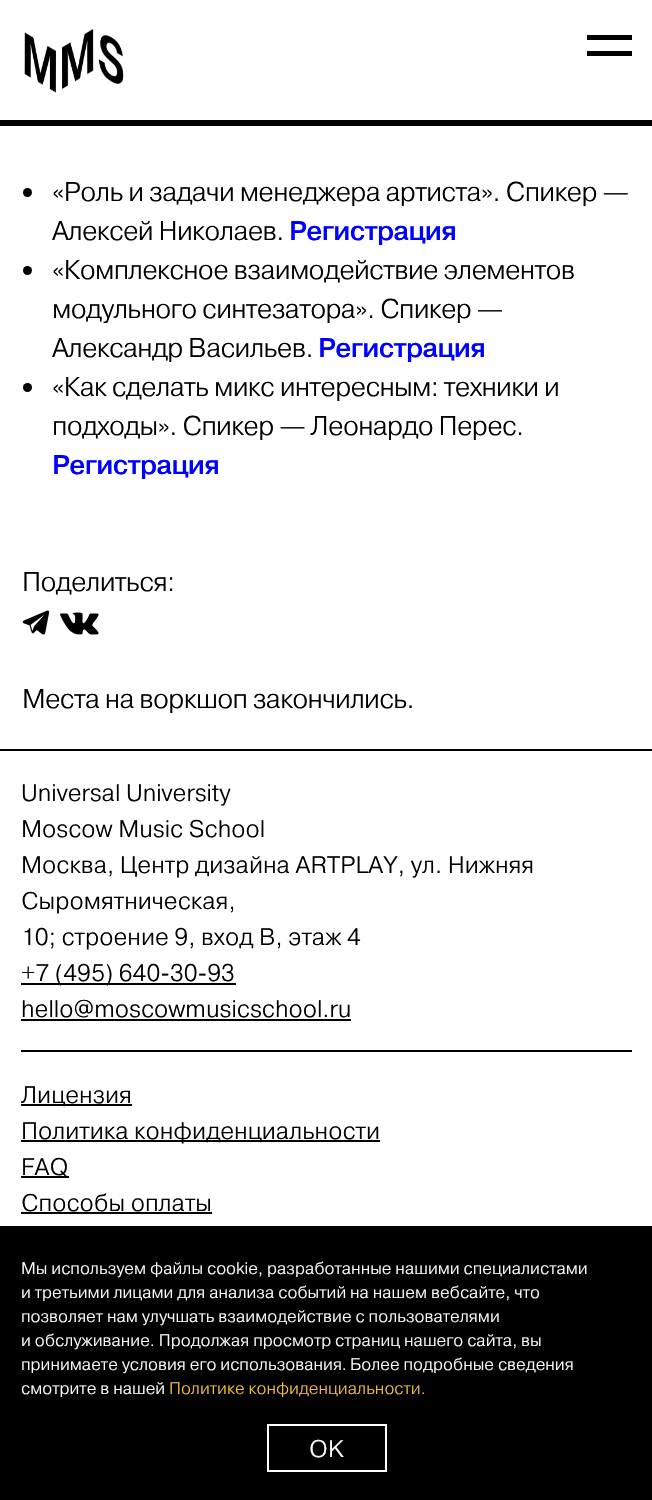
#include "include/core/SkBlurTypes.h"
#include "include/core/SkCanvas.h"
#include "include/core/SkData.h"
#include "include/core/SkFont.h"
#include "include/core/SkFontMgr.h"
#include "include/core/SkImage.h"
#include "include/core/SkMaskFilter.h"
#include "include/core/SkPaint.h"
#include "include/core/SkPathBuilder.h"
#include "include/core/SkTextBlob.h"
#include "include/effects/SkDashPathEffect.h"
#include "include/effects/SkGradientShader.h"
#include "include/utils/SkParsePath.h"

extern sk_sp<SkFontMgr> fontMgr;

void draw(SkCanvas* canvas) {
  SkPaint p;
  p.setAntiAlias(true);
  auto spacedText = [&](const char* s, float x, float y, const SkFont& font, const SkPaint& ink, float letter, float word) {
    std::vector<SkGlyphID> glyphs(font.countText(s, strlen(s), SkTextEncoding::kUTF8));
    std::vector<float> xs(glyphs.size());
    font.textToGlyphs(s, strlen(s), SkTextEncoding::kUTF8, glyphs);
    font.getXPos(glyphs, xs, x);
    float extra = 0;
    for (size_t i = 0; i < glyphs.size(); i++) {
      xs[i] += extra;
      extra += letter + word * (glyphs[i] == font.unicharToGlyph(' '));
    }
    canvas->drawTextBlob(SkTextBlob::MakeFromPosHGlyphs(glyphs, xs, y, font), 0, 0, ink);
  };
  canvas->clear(SK_ColorWHITE);
  p.setColor(SK_ColorBLACK);
  canvas->drawRect(SkRect::MakeLTRB(0, 120, 652, 126), p);
  canvas->drawImageRect(SkImages::DeferredFromEncodedData(SkData::MakeFromFileName("images/1.png")), SkRect::MakeLTRB(24, 29, 124, 93), SkSamplingOptions());
  canvas->drawRect(SkRect::MakeLTRB(587, 35, 632, 40), p);
  canvas->drawRect(SkRect::MakeLTRB(587, 51, 632, 56), p);
  canvas->drawRect(SkRect::MakeLTRB(0, 749, 652, 751), p);
  canvas->drawCircle(27.5f, 192.5f, 4.5f, p);
  canvas->drawCircle(27.5f, 270.5f, 4.5f, p);
  canvas->drawCircle(27.5f, 387.5f, 4.5f, p);
  canvas->drawImageRect(SkImages::DeferredFromEncodedData(SkData::MakeFromFileName("images/2.png")), SkRect::MakeLTRB(22, 610, 50, 635), SkSamplingOptions());
  canvas->drawImageRect(SkImages::DeferredFromEncodedData(SkData::MakeFromFileName("images/3.png")), SkRect::MakeLTRB(60, 612, 99, 635), SkSamplingOptions());
  canvas->drawRect(SkRect::MakeLTRB(21, 1050, 632, 1052), p);
  canvas->drawRect(SkRect::MakeLTRB(21, 983, 236, 985), p);
  canvas->drawRect(SkRect::MakeLTRB(21, 1019, 351, 1021), p);
  canvas->drawRect(SkRect::MakeLTRB(21, 1104, 132, 1106), p);
  canvas->drawRect(SkRect::MakeLTRB(21, 1140, 380, 1142), p);
  canvas->drawRect(SkRect::MakeLTRB(21, 1176, 69, 1178), p);
  canvas->drawRect(SkRect::MakeLTRB(21, 1212, 212, 1214), p);
  canvas->drawRect(SkRect::MakeLTRB(0, 1226, 652, 1500), p);
  p.setStyle(SkPaint::kStroke_Style);
  p.setStrokeWidth(2);
  p.setColor(SK_ColorWHITE);
  canvas->drawRect(SkRect::MakeLTRB(268, 1425, 386, 1471), p);
  SkFont font1(fontMgr->matchFamilyStyle("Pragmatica", SkFontStyle(300, SkFontStyle::kNormal_Width, SkFontStyle::kUpright_Slant)), 27);
  font1.setSubpixel(true);
  p.setStyle(SkPaint::kFill_Style);
  p.setColor(SK_ColorBLACK);
  spacedText("«Роль и задачи менеджера артиста». Спикер —", 52, 201, font1, p, -0.7f, 0);
  spacedText("Алексей Николаев.", 52, 240, font1, p, -0.7f, 0);
  SkFont font2(fontMgr->matchFamilyStyle("Pragmatica", SkFontStyle(500, SkFontStyle::kNormal_Width, SkFontStyle::kUpright_Slant)), 27);
  font2.setSubpixel(true);
  p.setColor(SkColorSetRGB(0, 0, 255));
  spacedText("Регистрация", 289, 240, font2, p, -0.7f, 0);
  p.setColor(SK_ColorBLACK);
  spacedText("«Комплексное взаимодействие элементов", 52, 279, font1, p, -0.7f, 0);
  spacedText("модульного синтезатора». Спикер —", 52, 318, font1, p, -0.7f, 0);
  spacedText("Александр Васильев.", 52, 357, font1, p, -0.7f, 0);
  p.setColor(SkColorSetRGB(0, 0, 255));
  spacedText("Регистрация", 318, 357, font2, p, -0.7f, 0);
  p.setColor(SK_ColorBLACK);
  spacedText("«Как сделать микс интересным: техники и", 52, 396, font1, p, -0.7f, 0);
  spacedText("подходы». Спикер — Леонардо Перес.", 52, 435, font1, p, -0.7f, 0);
  p.setColor(SkColorSetRGB(0, 0, 255));
  spacedText("Регистрация", 52, 474, font2, p, -0.7f, 0);
  p.setColor(SK_ColorBLACK);
  spacedText("Поделиться:", 22, 591, font1, p, -0.7f, 0);
  spacedText("Места на воркшоп закончились.", 22, 708, font1, p, -0.7f, 0);
  SkFont font3(fontMgr->matchFamilyStyle("Pragmatica", SkFontStyle(300, SkFontStyle::kNormal_Width, SkFontStyle::kUpright_Slant)), 24);
  font3.setSubpixel(true);
  canvas->drawString("Universal University", 21, 801, font3, p);
  canvas->drawString("Moscow Music School", 21, 837, font3, p);
  canvas->drawString("Москва, Центр дизайна ARTPLAY, ул. Нижняя", 21, 873, font3, p);
  canvas->drawString("Сыромятническая,", 21, 909, font3, p);
  canvas->drawString("10; строение 9, вход В, этаж 4", 21, 945, font3, p);
  canvas->drawString("+7 (495) 640-30-93", 21, 981, font3, p);
  canvas->drawString("hello@moscowmusicschool.ru", 21, 1017, font3, p);
  canvas->drawString("Лицензия", 21, 1103, font3, p);
  canvas->drawString("Политика конфиденциальности", 21, 1139, font3, p);
  canvas->drawString("FAQ", 21, 1175, font3, p);
  canvas->drawString("Способы оплаты", 21, 1211, font3, p);
  SkFont font4(fontMgr->matchFamilyStyle("Pragmatica", SkFontStyle(300, SkFontStyle::kNormal_Width, SkFontStyle::kUpright_Slant)), 16.8f);
  font4.setSubpixel(true);
  p.setColor(SK_ColorWHITE);
  canvas->drawString("Мы используем файлы cookie, разработанные нашими специалистами", 21, 1274, font4, p);
  canvas->drawString("и третьими лицами для анализа событий", 21, 1298, font4, p);
  canvas->drawString("на нашем веб‑сайте, что", 350, 1298, font4, p);
  canvas->drawString("позволяет нам улучшать взаимодействие с пользователями", 21, 1322, font4, p);
  canvas->drawString("и обслуживание. Продолжая просмотр страниц нашего сайта, вы", 21, 1346, font4, p);
  canvas->drawString("принимаете условия его использования.", 21, 1370, font4, p);
  canvas->drawString("Более подробные сведения", 350, 1370, font4, p);
  canvas->drawString("смотрите в нашей", 21, 1394, font4, p);
  p.setColor(SkColorSetRGB(246, 189, 66));
  canvas->drawString("Политике конфиденциальности.", 169, 1394, font4, p);
  p.setColor(SK_ColorWHITE);
  canvas->drawString("OK", 309, 1457, font3, p);
}
